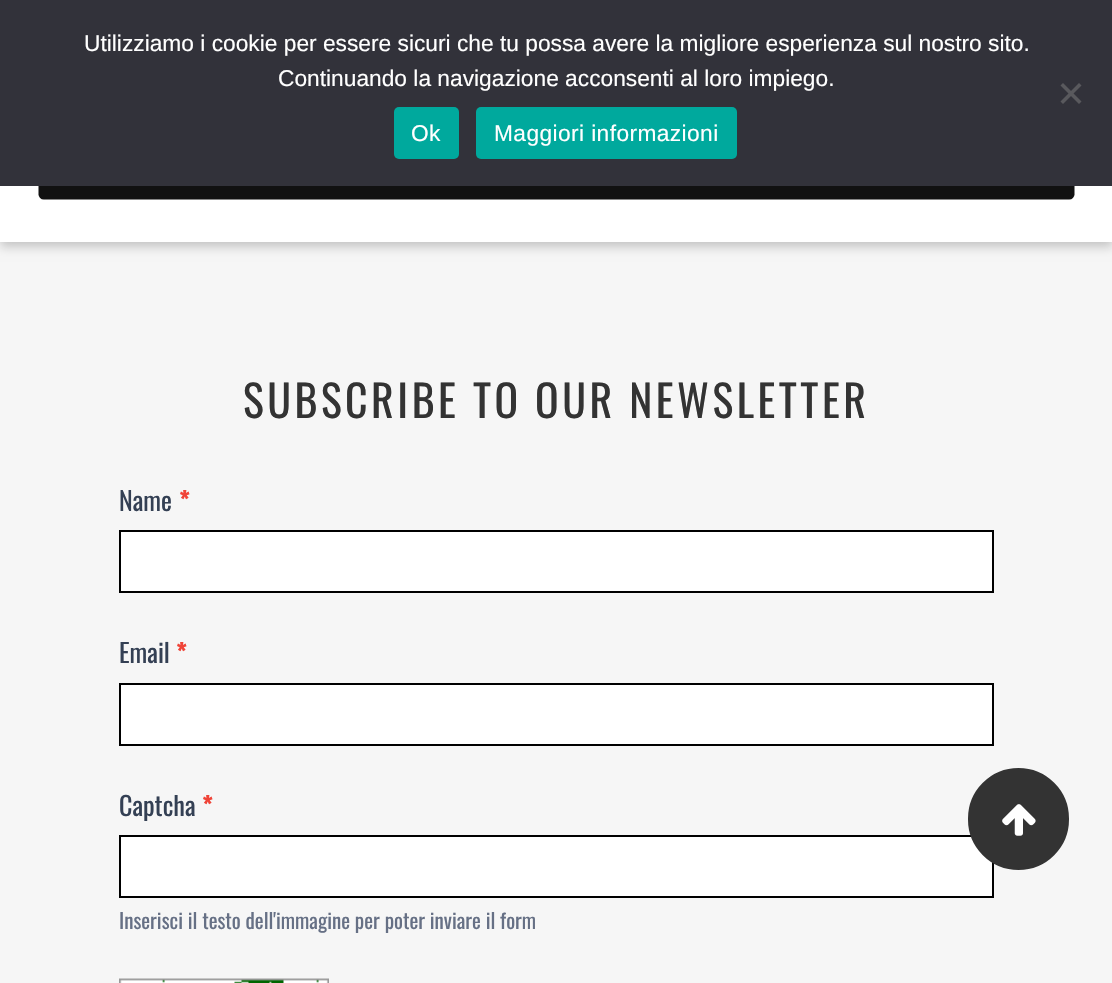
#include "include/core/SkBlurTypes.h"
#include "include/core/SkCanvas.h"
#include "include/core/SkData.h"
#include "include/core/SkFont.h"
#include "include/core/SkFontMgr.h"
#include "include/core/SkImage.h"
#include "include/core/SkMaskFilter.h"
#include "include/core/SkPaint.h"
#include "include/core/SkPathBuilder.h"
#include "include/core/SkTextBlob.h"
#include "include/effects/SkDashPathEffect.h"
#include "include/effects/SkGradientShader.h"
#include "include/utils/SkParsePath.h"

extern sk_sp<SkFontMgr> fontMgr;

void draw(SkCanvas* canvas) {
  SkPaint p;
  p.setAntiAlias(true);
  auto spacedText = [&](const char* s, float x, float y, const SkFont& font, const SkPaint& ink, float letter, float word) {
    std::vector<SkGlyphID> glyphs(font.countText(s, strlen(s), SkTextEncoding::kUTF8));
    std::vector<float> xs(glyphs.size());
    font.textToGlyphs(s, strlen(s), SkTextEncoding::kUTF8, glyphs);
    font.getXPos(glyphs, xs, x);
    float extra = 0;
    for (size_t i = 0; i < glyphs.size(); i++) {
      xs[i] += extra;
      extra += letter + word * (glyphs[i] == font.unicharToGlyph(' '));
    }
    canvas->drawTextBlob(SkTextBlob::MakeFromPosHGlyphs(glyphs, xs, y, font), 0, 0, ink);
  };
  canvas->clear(SkColorSetRGB(246, 246, 246));
  p.setColor(SkColorSetARGB(51, 0, 0, 0));
  p.setMaskFilter(SkMaskFilter::MakeBlur(kNormal_SkBlurStyle, 5));
  canvas->drawRect(SkRect::MakeLTRB(0, 5, 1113, 247), p);
  p.setMaskFilter(nullptr);
  p.setColor(SK_ColorWHITE);
  canvas->drawRect(SkRect::MakeLTRB(0, 186, 1112, 242), p);
  canvas->drawImageRect(SkImages::DeferredFromEncodedData(SkData::MakeFromFileName("images/1.png")), SkRect::MakeLTRB(38, 186, 1088, 200), SkSamplingOptions());
  p.setColor(SkColorSetRGB(50, 50, 58));
  canvas->drawRect(SkRect::MakeLTRB(0, 0, 1112, 186), p);
  p.setColor(SkColorSetRGB(89, 89, 93));
  canvas->drawPath(SkPathBuilder().moveTo(1079, 83).lineTo(1081.5f, 85.5f).lineTo(1063, 104).lineTo(1060.5f, 101.5f).close().detach(), p);
  canvas->drawPath(SkPathBuilder().moveTo(1060.5f, 85.5f).lineTo(1063, 83).lineTo(1081.5f, 101.5f).lineTo(1079, 104).close().detach(), p);
  p.setColor(SkColorSetRGB(0, 169, 157));
  canvas->drawRoundRect(SkRect::MakeLTRB(394, 107, 459, 159), 5, 5, p);
  canvas->drawRoundRect(SkRect::MakeLTRB(476, 107, 737, 159), 5, 5, p);
  p.setColor(SK_ColorWHITE);
  canvas->drawRect(SkRect::MakeLTRB(120, 531, 993, 592), p);
  p.setStyle(SkPaint::kStroke_Style);
  p.setStrokeWidth(2);
  p.setColor(SK_ColorBLACK);
  canvas->drawRect(SkRect::MakeLTRB(120, 531, 993, 592), p);
  p.setStyle(SkPaint::kFill_Style);
  p.setColor(SK_ColorWHITE);
  canvas->drawRect(SkRect::MakeLTRB(120, 684, 993, 745), p);
  p.setStyle(SkPaint::kStroke_Style);
  p.setColor(SK_ColorBLACK);
  canvas->drawRect(SkRect::MakeLTRB(120, 684, 993, 745), p);
  p.setStyle(SkPaint::kFill_Style);
  p.setColor(SK_ColorWHITE);
  canvas->drawRect(SkRect::MakeLTRB(120, 836, 993, 897), p);
  p.setStyle(SkPaint::kStroke_Style);
  p.setColor(SK_ColorBLACK);
  canvas->drawRect(SkRect::MakeLTRB(120, 836, 993, 897), p);
  canvas->drawImageRect(SkImages::DeferredFromEncodedData(SkData::MakeFromFileName("images/2.png")), SkRect::MakeLTRB(119, 978, 329, 983), SkSamplingOptions());
  p.setStyle(SkPaint::kFill_Style);
  p.setColor(SkColorSetRGB(51, 51, 51));
  canvas->drawRoundRect(SkRect::MakeLTRB(970.5f, 770.5f, 1066.5f, 867.5f), 48, 48, p);
  p.setStyle(SkPaint::kStroke_Style);
  p.setStrokeWidth(5);
  canvas->drawRoundRect(SkRect::MakeLTRB(970.5f, 770.5f, 1066.5f, 867.5f), 48, 48, p);
  canvas->drawImageRect(SkImages::DeferredFromEncodedData(SkData::MakeFromFileName("images/3.png")), SkRect::MakeLTRB(1002, 804, 1036, 836), SkSamplingOptions());
  SkFont font1(fontMgr->matchFamilyStyle("Liberation Sans", SkFontStyle::Normal()), 22.75f);
  font1.setSubpixel(true);
  p.setStyle(SkPaint::kFill_Style);
  p.setColor(SK_ColorWHITE);
  canvas->drawString("Utilizziamo i cookie per essere sicuri che tu possa avere la migliore esperienza sul nostro sito.", 84, 51, font1, p);
  canvas->drawString("Continuando la navigazione acconsenti al loro impiego.", 278, 86, font1, p);
  spacedText("Ok", 411, 141, font1, p, 0.4f, 0);
  spacedText("Maggiori informazioni", 494, 141, font1, p, 0.4f, 0);
  SkFont font2(fontMgr->matchFamilyStyle("Oswald", SkFontStyle::Normal()), 43.75f);
  font2.setSubpixel(true);
  p.setColor(SkColorSetRGB(51, 51, 51));
  spacedText("SUBSCRIBE TO OUR NEWSLETTER", 243, 418, font2, p, 3.5f, 0);
  SkFont font3(fontMgr->matchFamilyStyle("Oswald", SkFontStyle::Normal()), 26);
  font3.setSubpixel(true);
  p.setColor(SkColorSetRGB(52, 64, 84));
  canvas->drawString("Name", 119, 511, font3, p);
  SkFont font4(fontMgr->matchFamilyStyle("Oswald", SkFontStyle::Bold()), 26);
  font4.setSubpixel(true);
  p.setColor(SkColorSetRGB(240, 68, 56));
  canvas->drawString("*", 179, 511, font4, p);
  p.setColor(SkColorSetRGB(52, 64, 84));
  canvas->drawString("Email", 119, 663, font3, p);
  p.setColor(SkColorSetRGB(240, 68, 56));
  canvas->drawString("*", 176, 663, font4, p);
  p.setColor(SkColorSetRGB(52, 64, 84));
  canvas->drawString("Captcha", 119, 816, font3, p);
  p.setColor(SkColorSetRGB(240, 68, 56));
  canvas->drawString("*", 202, 816, font4, p);
  SkFont font5(fontMgr->matchFamilyStyle("Oswald", SkFontStyle::Normal()), 21);
  font5.setSubpixel(true);
  p.setColor(SkColorSetRGB(102, 112, 133));
  canvas->drawString("Inserisci il testo dell'immagine per poter inviare il form", 119, 929, font5, p);
}
